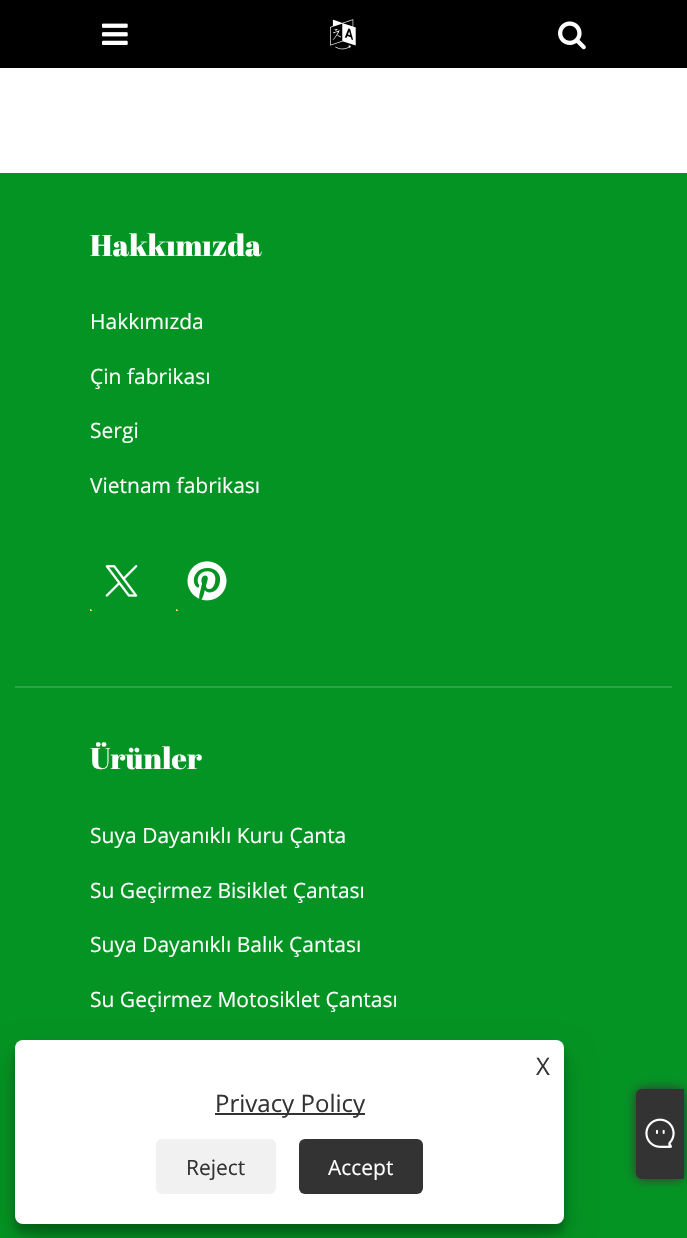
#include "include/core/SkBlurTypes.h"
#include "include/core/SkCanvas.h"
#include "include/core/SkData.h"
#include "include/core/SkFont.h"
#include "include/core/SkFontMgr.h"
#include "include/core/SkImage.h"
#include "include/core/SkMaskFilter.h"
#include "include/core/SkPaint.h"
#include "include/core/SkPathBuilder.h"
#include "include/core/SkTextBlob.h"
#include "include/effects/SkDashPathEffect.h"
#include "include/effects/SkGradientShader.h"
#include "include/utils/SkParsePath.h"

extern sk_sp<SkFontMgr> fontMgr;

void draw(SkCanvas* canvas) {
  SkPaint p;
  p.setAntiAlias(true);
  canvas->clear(SK_ColorWHITE);
  p.setColor(SK_ColorBLACK);
  canvas->drawRect(SkRect::MakeLTRB(0, 0, 687, 68), p);
  canvas->drawImageRect(SkImages::DeferredFromEncodedData(SkData::MakeFromFileName("images/1.png")), SkRect::MakeLTRB(102, 23, 128, 45), SkSamplingOptions());
  canvas->drawImageRect(SkImages::DeferredFromEncodedData(SkData::MakeFromFileName("images/2.png")), SkRect::MakeLTRB(330, 19, 356, 50), SkSamplingOptions());
  canvas->drawImageRect(SkImages::DeferredFromEncodedData(SkData::MakeFromFileName("images/3.png")), SkRect::MakeLTRB(558, 21, 586, 50), SkSamplingOptions());
  p.setColor(SkColorSetRGB(4, 148, 35));
  canvas->drawRect(SkRect::MakeLTRB(0, 173, 687, 1238), p);
  canvas->drawImageRect(SkImages::DeferredFromEncodedData(SkData::MakeFromFileName("images/4.png")), SkRect::MakeLTRB(105, 565, 138, 597), SkSamplingOptions());
  canvas->save();
  canvas->clipRect(SkRect::MakeLTRB(90, 558, 153, 611));
  p.setColor(SkColorSetRGB(254, 226, 95));
  canvas->drawPath(SkPathBuilder().moveTo(60, 579).lineTo(127, 645).lineTo(71, 701).lineTo(5, 634).close().detach(), p);
  canvas->restore();
  canvas->drawImageRect(SkImages::DeferredFromEncodedData(SkData::MakeFromFileName("images/5.png")), SkRect::MakeLTRB(187, 561, 227, 601), SkSamplingOptions());
  canvas->save();
  canvas->clipRect(SkRect::MakeLTRB(176, 558, 239, 611));
  canvas->drawPath(SkPathBuilder().moveTo(146, 579).lineTo(213, 645).lineTo(157, 701).lineTo(90, 634).close().detach(), p);
  canvas->restore();
  p.setColor(SkColorSetRGB(42, 164, 68));
  canvas->drawRect(SkRect::MakeLTRB(15, 686, 672, 688), p);
  p.setColor(SkColorSetARGB(59, 0, 0, 0));
  p.setMaskFilter(SkMaskFilter::MakeBlur(kNormal_SkBlurStyle, 4.5f));
  canvas->drawRoundRect(SkRect::MakeLTRB(15, 1049, 564, 1233), 8, 8, p);
  p.setMaskFilter(nullptr);
  p.setColor(SkColorSetARGB(48, 0, 0, 0));
  p.setMaskFilter(SkMaskFilter::MakeBlur(kNormal_SkBlurStyle, 15));
  canvas->drawRoundRect(SkRect::MakeLTRB(15, 1055, 564, 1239), 8, 8, p);
  p.setMaskFilter(nullptr);
  p.setColor(SK_ColorWHITE);
  canvas->drawRoundRect(SkRect::MakeLTRB(15, 1040, 564, 1224), 8, 8, p);
  p.setColor(SkColorSetRGB(51, 51, 51));
  canvas->drawRect(SkRect::MakeLTRB(215, 1113, 365, 1115), p);
  p.setColor(SkColorSetRGB(241, 241, 241));
  canvas->drawRoundRect(SkRect::MakeLTRB(156, 1139, 276, 1194), 6, 6, p);
  p.setColor(SkColorSetRGB(51, 51, 51));
  canvas->drawRoundRect(SkRect::MakeLTRB(299, 1139, 423, 1194), 6, 6, p);
  p.setMaskFilter(SkMaskFilter::MakeBlur(kNormal_SkBlurStyle, 6));
  canvas->drawRoundRect(SkRect::MakeLTRB(636, 1089, 684, 1179), 6, 6, p);
  p.setMaskFilter(nullptr);
  canvas->drawPath(SkPathBuilder().moveTo(642, 1089).lineTo(684, 1089).lineTo(684, 1179).lineTo(642, 1179).cubicTo(638.5f, 1179, 636, 1176.5f, 636, 1173).lineTo(636, 1095).cubicTo(636, 1091.5f, 638.5f, 1089, 642, 1089).close().detach(), p);
  canvas->drawImageRect(SkImages::DeferredFromEncodedData(SkData::MakeFromFileName("images/6.png")), SkRect::MakeLTRB(645, 1118, 675, 1148), SkSamplingOptions());
  SkFont font1(fontMgr->matchFamilyStyle("Abril Fatface", SkFontStyle::Normal()), 30);
  font1.setSubpixel(true);
  p.setColor(SK_ColorWHITE);
  canvas->drawString("Hakkımızda", 90, 256, font1, p);
  SkFont font2(fontMgr->matchFamilyStyle("Open Sans", SkFontStyle::Normal()), 21);
  font2.setSubpixel(true);
  canvas->drawString("Hakkımızda", 90, 329, font2, p);
  canvas->drawString("Çin fabrikası", 90, 384, font2, p);
  canvas->drawString("Sergi", 90, 438, font2, p);
  canvas->drawString("Vietnam fabrikası", 90, 493, font2, p);
  canvas->drawString("Ürünler", 90, 769, font1, p);
  canvas->drawString("Suya Dayanıklı Kuru Çanta", 90, 843, font2, p);
  canvas->drawString("Su Geçirmez Bisiklet Çantası", 90, 898, font2, p);
  canvas->drawString("Suya Dayanıklı Balık Çantası", 90, 952, font2, p);
  canvas->drawString("Su Geçirmez Motosiklet Çantası", 90, 1007, font2, p);
  SkFont font3(fontMgr->matchFamilyStyle("Open Sans", SkFontStyle::Normal()), 24);
  font3.setSubpixel(true);
  p.setColor(SkColorSetRGB(51, 51, 51));
  canvas->drawString("X", 536, 1075, font3, p);
  canvas->drawString("Privacy Policy", 215, 1112, font3, p);
  canvas->drawString("Reject", 186, 1175, font2, p);
  p.setColor(SK_ColorWHITE);
  canvas->drawString("Accept", 328, 1175, font2, p);
}
